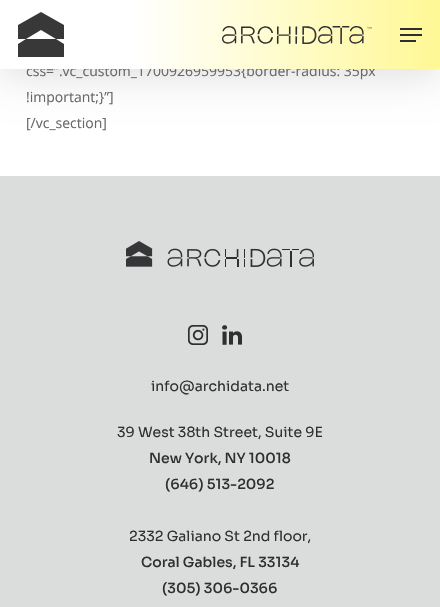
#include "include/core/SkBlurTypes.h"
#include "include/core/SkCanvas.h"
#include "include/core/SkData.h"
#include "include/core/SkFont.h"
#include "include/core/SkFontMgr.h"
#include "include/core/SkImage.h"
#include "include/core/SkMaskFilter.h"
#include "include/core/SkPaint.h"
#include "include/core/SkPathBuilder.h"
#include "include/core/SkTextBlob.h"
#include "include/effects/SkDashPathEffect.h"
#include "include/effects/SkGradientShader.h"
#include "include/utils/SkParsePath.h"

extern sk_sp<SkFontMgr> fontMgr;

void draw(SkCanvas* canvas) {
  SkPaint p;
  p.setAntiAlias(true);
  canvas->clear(SK_ColorWHITE);
  p.setColor(SkColorSetARGB(38, 0, 0, 0));
  p.setMaskFilter(SkMaskFilter::MakeBlur(kNormal_SkBlurStyle, 22.5f));
  canvas->drawRect(SkRect::MakeLTRB(0, 3, 440, 72), p);
  p.setMaskFilter(nullptr);
  p.setColor(SkColorSetRGB(218, 221, 220));
  canvas->drawRect(SkRect::MakeLTRB(0, 176, 440, 607), p);
  canvas->drawImageRect(SkImages::DeferredFromEncodedData(SkData::MakeFromFileName("images/2.png")), SkRect::MakeLTRB(126, 241, 314, 267), SkSamplingOptions());
  canvas->drawImageRect(SkImages::DeferredFromEncodedData(SkData::MakeFromFileName("images/3.png")), SkRect::MakeLTRB(188, 325, 208, 345), SkSamplingOptions());
  canvas->drawImageRect(SkImages::DeferredFromEncodedData(SkData::MakeFromFileName("images/4.png")), SkRect::MakeLTRB(222, 325, 242, 345), SkSamplingOptions());
  SkFont font1(fontMgr->matchFamilyStyle("Open Sans", SkFontStyle::Normal()), 14);
  font1.setSubpixel(true);
  p.setColor(SkColorSetRGB(103, 103, 103));
  canvas->drawString("css=”.vc_custom_1700926959953{border-radius: 35px", 26, 76, font1, p);
  {
    const SkColor colors[] = {SK_ColorWHITE, SkColorSetRGB(255, 248, 149)};
    const float stops[] = {0.3f, 1};
    const SkPoint ends[] = {{0, 35}, {440, 34}};
    p.setShader(SkGradientShader::MakeLinear(ends, colors, stops, 2, SkTileMode::kClamp));
    p.setAlpha(255);
  }
  canvas->drawRect(SkRect::MakeLTRB(0, 0, 440, 69), p);
  p.setShader(nullptr);
  p.setColor(SkColorSetRGB(47, 47, 49));
  canvas->drawRect(SkRect::MakeLTRB(400, 34, 422, 36), p);
  canvas->drawRect(SkRect::MakeLTRB(400, 28, 422, 30), p);
  canvas->drawRect(SkRect::MakeLTRB(400, 40, 416, 42), p);
  p.setColor(SkColorSetRGB(56, 56, 56));
  canvas->drawPath(SkPathBuilder().moveTo(41, 12).lineTo(64, 25).lineTo(64, 39).lineTo(56, 39).lineTo(41, 30).lineTo(26, 39).lineTo(18, 39).lineTo(18, 25).close().moveTo(26, 39).lineTo(56, 39).lineTo(64, 44).lineTo(64, 57).lineTo(18, 57).lineTo(18, 44).close().detach(), p);
  canvas->drawImageRect(SkImages::DeferredFromEncodedData(SkData::MakeFromFileName("images/1.png")), SkRect::MakeLTRB(222, 26, 372, 44), SkSamplingOptions());
  p.setColor(SkColorSetRGB(103, 103, 103));
  canvas->drawString("!important;}”]", 26, 102, font1, p);
  canvas->drawString("[/vc_section]", 26, 128, font1, p);
  SkFont font2(fontMgr->matchFamilyStyle("Sora", SkFontStyle::Normal()), 14);
  font2.setSubpixel(true);
  p.setColor(SkColorSetRGB(47, 47, 49));
  canvas->drawString("info@archidata.net", 151, 391, font2, p);
  canvas->drawString("39 West 38th Street, Suite 9E", 117, 437, font2, p);
  SkFont font3(fontMgr->matchFamilyStyle("Sora", SkFontStyle(500, SkFontStyle::kNormal_Width, SkFontStyle::kUpright_Slant)), 14);
  font3.setSubpixel(true);
  canvas->drawString("New York, NY 10018", 149, 463, font3, p);
  canvas->drawString("(646) 513-2092", 165, 489, font3, p);
  canvas->drawString("2332 Galiano St 2nd floor,", 129, 541, font2, p);
  canvas->drawString("Coral Gables, FL 33134", 141, 567, font3, p);
  canvas->drawString("(305) 306-0366", 162, 593, font3, p);
}
